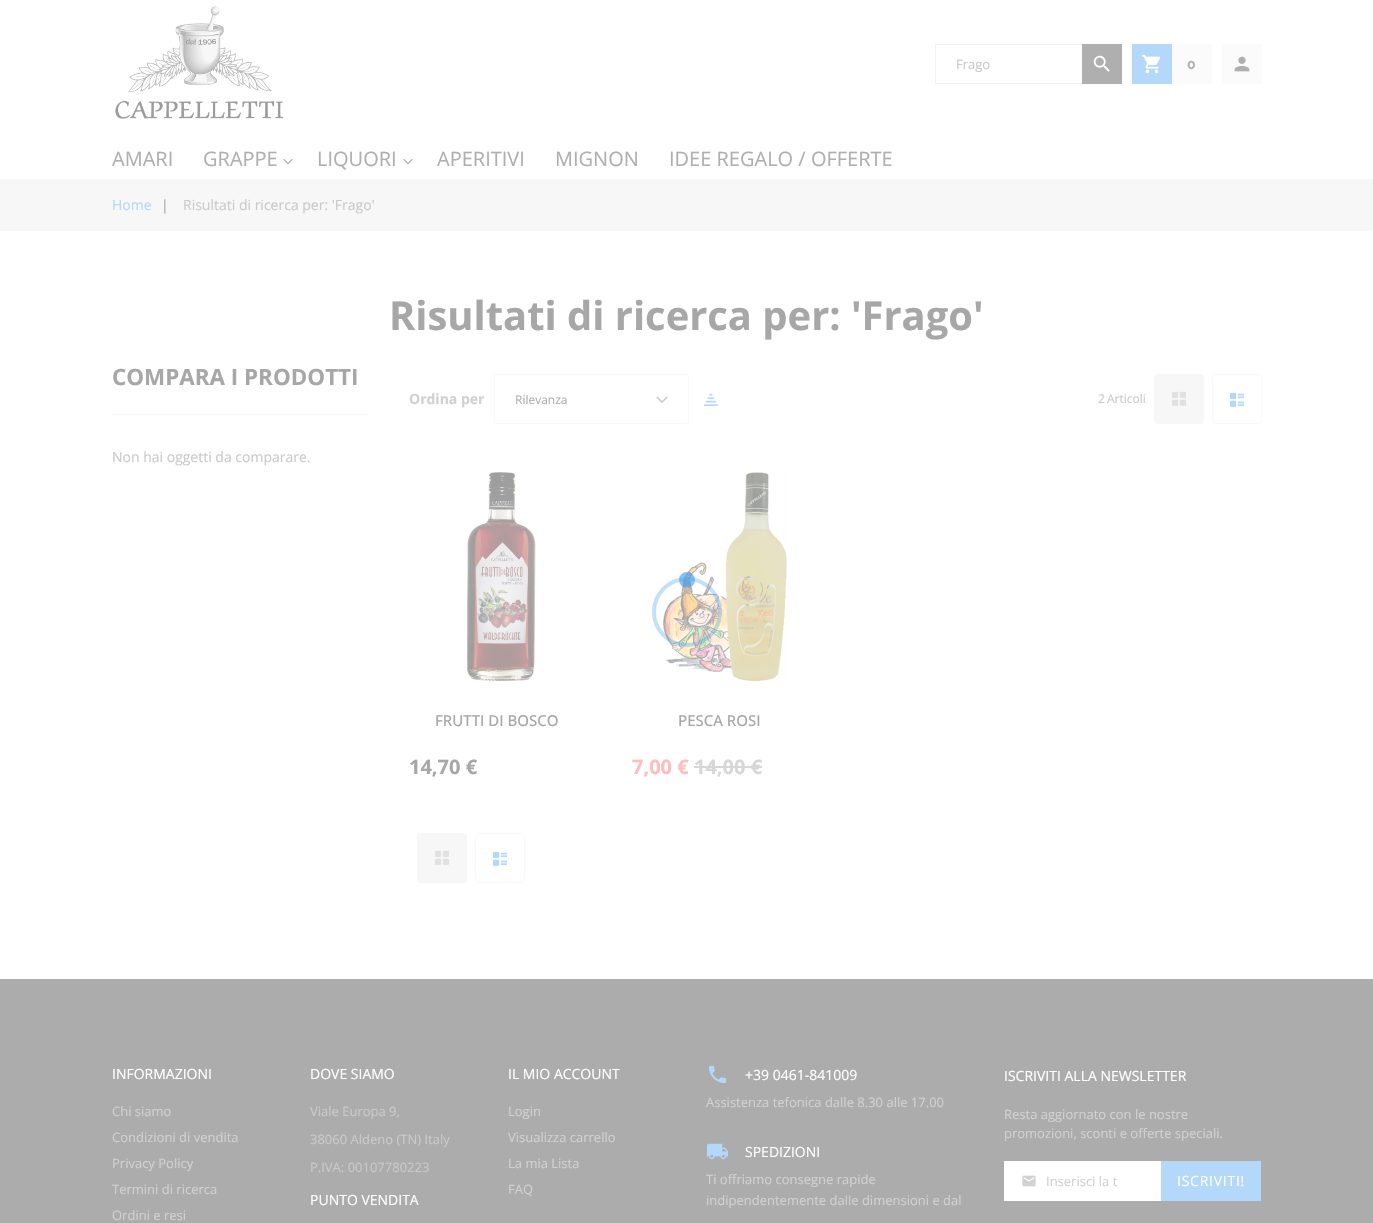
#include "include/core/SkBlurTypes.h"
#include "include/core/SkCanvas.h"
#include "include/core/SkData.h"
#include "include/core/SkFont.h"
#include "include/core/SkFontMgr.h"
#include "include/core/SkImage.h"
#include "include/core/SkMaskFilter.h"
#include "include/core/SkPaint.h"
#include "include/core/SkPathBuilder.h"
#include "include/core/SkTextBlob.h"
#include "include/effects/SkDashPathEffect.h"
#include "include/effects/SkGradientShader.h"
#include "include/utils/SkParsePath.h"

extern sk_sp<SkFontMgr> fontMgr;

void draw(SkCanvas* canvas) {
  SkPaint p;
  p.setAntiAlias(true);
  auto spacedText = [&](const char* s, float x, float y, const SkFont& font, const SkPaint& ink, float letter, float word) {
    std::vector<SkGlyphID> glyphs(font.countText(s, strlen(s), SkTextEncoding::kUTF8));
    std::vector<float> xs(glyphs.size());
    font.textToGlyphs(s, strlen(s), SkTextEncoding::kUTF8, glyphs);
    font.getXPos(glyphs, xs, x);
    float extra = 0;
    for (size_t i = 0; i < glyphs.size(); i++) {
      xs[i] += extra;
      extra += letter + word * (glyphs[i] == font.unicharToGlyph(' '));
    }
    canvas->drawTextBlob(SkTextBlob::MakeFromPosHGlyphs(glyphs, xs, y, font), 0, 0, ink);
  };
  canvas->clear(SK_ColorWHITE);
  canvas->drawImageRect(SkImages::DeferredFromEncodedData(SkData::MakeFromFileName("images/1.png")), SkRect::MakeLTRB(115, 6, 284, 119), SkSamplingOptions());
  p.setStyle(SkPaint::kStroke_Style);
  p.setStrokeWidth(1);
  p.setColor(SkColorSetRGB(243, 243, 243));
  canvas->drawRect(SkRect::MakeLTRB(935.5f, 44.5f, 1082.5f, 83.5f), p);
  p.setStyle(SkPaint::kFill_Style);
  p.setColor(SkColorSetRGB(175, 175, 175));
  canvas->drawRect(SkRect::MakeLTRB(1082, 44, 1122, 84), p);
  canvas->drawImageRect(SkImages::DeferredFromEncodedData(SkData::MakeFromFileName("images/2.png")), SkRect::MakeLTRB(1093, 55, 1110, 72), SkSamplingOptions());
  p.setColor(SkColorSetRGB(179, 216, 249));
  canvas->drawRect(SkRect::MakeLTRB(1132, 44, 1172, 84), p);
  canvas->drawImageRect(SkImages::DeferredFromEncodedData(SkData::MakeFromFileName("images/3.png")), SkRect::MakeLTRB(1141, 54, 1161, 74), SkSamplingOptions());
  p.setColor(SkColorSetRGB(251, 251, 251));
  canvas->drawRect(SkRect::MakeLTRB(1172, 44, 1212, 84), p);
  canvas->drawRect(SkRect::MakeLTRB(1222, 44, 1262, 84), p);
  canvas->drawImageRect(SkImages::DeferredFromEncodedData(SkData::MakeFromFileName("images/4.png")), SkRect::MakeLTRB(1234, 56, 1250, 72), SkSamplingOptions());
  canvas->drawImageRect(SkImages::DeferredFromEncodedData(SkData::MakeFromFileName("images/5.png")), SkRect::MakeLTRB(283, 158, 293, 165), SkSamplingOptions());
  canvas->drawImageRect(SkImages::DeferredFromEncodedData(SkData::MakeFromFileName("images/5.png")), SkRect::MakeLTRB(403, 158, 413, 165), SkSamplingOptions());
  p.setColor(SkColorSetRGB(247, 247, 247));
  canvas->drawRect(SkRect::MakeLTRB(0, 179, 1373, 231), p);
  p.setColor(SkColorSetRGB(249, 249, 249));
  canvas->drawRect(SkRect::MakeLTRB(112, 414, 369, 415), p);
  p.setStyle(SkPaint::kStroke_Style);
  canvas->drawRoundRect(SkRect::MakeLTRB(494.5f, 374.5f, 688.5f, 423.5f), 1.5f, 1.5f, p);
  canvas->drawImageRect(SkImages::DeferredFromEncodedData(SkData::MakeFromFileName("images/6.png")), SkRect::MakeLTRB(656, 396, 668, 403), SkSamplingOptions());
  canvas->drawImageRect(SkImages::DeferredFromEncodedData(SkData::MakeFromFileName("images/7.png")), SkRect::MakeLTRB(703, 393, 718, 407), SkSamplingOptions());
  p.setStyle(SkPaint::kFill_Style);
  p.setColor(SkColorSetRGB(247, 247, 247));
  canvas->drawRoundRect(SkRect::MakeLTRB(1154, 374, 1204, 424), 4, 4, p);
  canvas->drawImageRect(SkImages::DeferredFromEncodedData(SkData::MakeFromFileName("images/8.png")), SkRect::MakeLTRB(1172, 391, 1186, 406), SkSamplingOptions());
  p.setStyle(SkPaint::kStroke_Style);
  p.setColor(SkColorSetRGB(249, 249, 249));
  canvas->drawRoundRect(SkRect::MakeLTRB(1212.5f, 374.5f, 1261.5f, 423.5f), 3.5f, 3.5f, p);
  canvas->drawImageRect(SkImages::DeferredFromEncodedData(SkData::MakeFromFileName("images/9.png")), SkRect::MakeLTRB(1230, 392, 1244, 407), SkSamplingOptions());
  canvas->drawImageRect(SkImages::DeferredFromEncodedData(SkData::MakeFromFileName("images/10.png")), SkRect::MakeLTRB(466, 472, 538, 681), SkSamplingOptions());
  canvas->drawImageRect(SkImages::DeferredFromEncodedData(SkData::MakeFromFileName("images/11.png")), SkRect::MakeLTRB(662, 472, 787, 681), SkSamplingOptions());
  p.setStyle(SkPaint::kFill_Style);
  p.setColor(SkColorSetRGB(215, 215, 215));
  canvas->drawRect(SkRect::MakeLTRB(694, 766, 762, 768), p);
  p.setColor(SkColorSetRGB(247, 247, 247));
  canvas->drawRoundRect(SkRect::MakeLTRB(417, 833, 467, 883), 4, 4, p);
  canvas->drawImageRect(SkImages::DeferredFromEncodedData(SkData::MakeFromFileName("images/8.png")), SkRect::MakeLTRB(435, 850, 449, 865), SkSamplingOptions());
  p.setStyle(SkPaint::kStroke_Style);
  p.setColor(SkColorSetRGB(249, 249, 249));
  canvas->drawRoundRect(SkRect::MakeLTRB(475.5f, 833.5f, 524.5f, 882.5f), 3.5f, 3.5f, p);
  canvas->drawImageRect(SkImages::DeferredFromEncodedData(SkData::MakeFromFileName("images/9.png")), SkRect::MakeLTRB(493, 851, 507, 866), SkSamplingOptions());
  p.setStrokeWidth(4);
  p.setColor(SkColorSetARGB(79, 61, 155, 239));
  canvas->drawCircle(687, 612, 33, p);
  p.setStyle(SkPaint::kFill_Style);
  p.setColor(SkColorSetARGB(156, 61, 155, 239));
  canvas->drawCircle(687, 580, 8, p);
  p.setColor(SkColorSetRGB(172, 172, 172));
  canvas->drawRect(SkRect::MakeLTRB(0, 979, 1373, 1223), p);
  canvas->drawImageRect(SkImages::DeferredFromEncodedData(SkData::MakeFromFileName("images/12.png")), SkRect::MakeLTRB(708, 1065, 727, 1084), SkSamplingOptions());
  canvas->drawImageRect(SkImages::DeferredFromEncodedData(SkData::MakeFromFileName("images/13.png")), SkRect::MakeLTRB(706, 1143, 729, 1160), SkSamplingOptions());
  p.setColor(SK_ColorWHITE);
  canvas->drawRect(SkRect::MakeLTRB(1004, 1161, 1161, 1201), p);
  canvas->drawImageRect(SkImages::DeferredFromEncodedData(SkData::MakeFromFileName("images/14.png")), SkRect::MakeLTRB(1022, 1175, 1036, 1187), SkSamplingOptions());
  p.setColor(SkColorSetRGB(179, 216, 249));
  canvas->drawRect(SkRect::MakeLTRB(1161, 1161, 1261, 1201), p);
  SkFont font1(fontMgr->matchFamilyStyle("Open Sans", SkFontStyle::Normal()), 13);
  font1.setSubpixel(true);
  p.setColor(SkColorSetRGB(202, 202, 202));
  canvas->drawString("Frago", 956, 69, font1, p);
  SkFont font2(fontMgr->matchFamilyStyle("Raleway", SkFontStyle::Bold()), 14);
  font2.setSubpixel(true);
  p.setColor(SkColorSetRGB(175, 175, 175));
  canvas->drawString("0", 1187, 69, font2, p);
  SkFont font3(fontMgr->matchFamilyStyle("Open Sans", SkFontStyle::Normal()), 20);
  font3.setSubpixel(true);
  canvas->drawString("AMARI", 112, 166, font3, p);
  canvas->drawString("GRAPPE", 203, 166, font3, p);
  canvas->drawString("LIQUORI", 317, 166, font3, p);
  canvas->drawString("APERITIVI", 437, 166, font3, p);
  canvas->drawString("MIGNON", 555, 166, font3, p);
  canvas->drawString("IDEE REGALO / OFFERTE", 669, 166, font3, p);
  SkFont font4(fontMgr->matchFamilyStyle("Open Sans", SkFontStyle::Normal()), 14);
  font4.setSubpixel(true);
  p.setColor(SkColorSetRGB(179, 216, 249));
  canvas->drawString("Home", 112, 210, font4, p);
  p.setColor(SkColorSetRGB(167, 167, 167));
  canvas->drawString("|", 161, 210, font4, p);
  p.setColor(SkColorSetRGB(202, 202, 202));
  canvas->drawString("Risultati di ricerca per: 'Frago'", 183, 210, font4, p);
  SkFont font5(fontMgr->matchFamilyStyle("Open Sans", SkFontStyle::Bold()), 39.9f);
  font5.setSubpixel(true);
  p.setColor(SkColorSetRGB(167, 167, 167));
  canvas->drawString("Risultati di ricerca per: 'Frago'", 389, 330, font5, p);
  SkFont font6(fontMgr->matchFamilyStyle("Open Sans", SkFontStyle::Bold()), 22.4f);
  font6.setSubpixel(true);
  canvas->drawString("COMPARA I PRODOTTI", 112, 385, font6, p);
  p.setColor(SkColorSetRGB(202, 202, 202));
  canvas->drawString("Non hai oggetti da comparare.", 112, 462, font4, p);
  SkFont font7(fontMgr->matchFamilyStyle("Open Sans", SkFontStyle::Bold()), 14);
  font7.setSubpixel(true);
  p.setColor(SkColorSetRGB(209, 209, 209));
  canvas->drawString("Ordina per", 409, 404, font7, p);
  SkFont font8(fontMgr->matchFamilyStyle("Open Sans", SkFontStyle::Normal()), 12);
  font8.setSubpixel(true);
  p.setColor(SkColorSetRGB(175, 175, 175));
  canvas->drawString("Rilevanza", 515, 404, font8, p);
  p.setColor(SkColorSetRGB(202, 202, 202));
  canvas->drawString("2", 1098, 403, font8, p);
  canvas->drawString("Articoli", 1107, 403, font8, p);
  SkFont font9(fontMgr->matchFamilyStyle("Open Sans", SkFontStyle(500, SkFontStyle::kNormal_Width, SkFontStyle::kUpright_Slant)), 15);
  font9.setSubpixel(true);
  p.setColor(SkColorSetRGB(167, 167, 167));
  canvas->drawString("FRUTTI DI BOSCO", 435, 726, font9, p);
  SkFont font10(fontMgr->matchFamilyStyle("Open Sans", SkFontStyle::Bold()), 20);
  font10.setSubpixel(true);
  canvas->drawString("14,70 €", 409, 774, font10, p);
  canvas->drawString("PESCA ROSI", 678, 726, font9, p);
  p.setColor(SkColorSetRGB(255, 189, 189));
  canvas->drawString("7,00 €", 632, 774, font10, p);
  p.setColor(SkColorSetRGB(215, 215, 215));
  canvas->drawString("14,00 €", 694, 774, font10, p);
  p.setColor(SK_ColorWHITE);
  canvas->drawString("INFORMAZIONI", 112, 1079, font4, p);
  p.setColor(SkColorSetRGB(209, 209, 209));
  canvas->drawString("Chi siamo", 112, 1116, font1, p);
  canvas->drawString("Condizioni di vendita", 112, 1142, font1, p);
  canvas->drawString("Privacy Policy", 112, 1168, font1, p);
  canvas->drawString("Termini di ricerca", 112, 1194, font1, p);
  canvas->drawString("Ordini e resi", 112, 1220, font1, p);
  p.setColor(SK_ColorWHITE);
  canvas->drawString("DOVE SIAMO", 310, 1079, font4, p);
  p.setColor(SkColorSetRGB(202, 202, 202));
  canvas->drawString("Viale Europa 9,", 310, 1116, font1, p);
  canvas->drawString("38060 Aldeno (TN) Italy", 310, 1144, font1, p);
  canvas->drawString("P.IVA: 00107780223", 310, 1172, font1, p);
  p.setColor(SK_ColorWHITE);
  canvas->drawString("PUNTO VENDITA", 310, 1205, font4, p);
  canvas->drawString("IL MIO ACCOUNT", 508, 1079, font4, p);
  p.setColor(SkColorSetRGB(209, 209, 209));
  canvas->drawString("Login", 508, 1116, font1, p);
  canvas->drawString("Visualizza carrello", 508, 1142, font1, p);
  canvas->drawString("La mia Lista", 508, 1168, font1, p);
  canvas->drawString("FAQ", 508, 1194, font1, p);
  p.setColor(SK_ColorWHITE);
  canvas->drawString("+39 0461-841009", 745, 1080, font4, p);
  p.setColor(SkColorSetRGB(209, 209, 209));
  canvas->drawString("Assistenza tefonica dalle 8.30 alle 17.00", 706, 1107, font1, p);
  p.setColor(SK_ColorWHITE);
  canvas->drawString("SPEDIZIONI", 745, 1157, font4, p);
  p.setColor(SkColorSetRGB(209, 209, 209));
  canvas->drawString("Ti offriamo consegne rapide", 706, 1184, font1, p);
  canvas->drawString("indipendentemente dalle dimensioni e dal", 706, 1205, font1, p);
  p.setColor(SK_ColorWHITE);
  canvas->drawString("ISCRIVITI ALLA NEWSLETTER", 1004, 1081, font4, p);
  p.setColor(SkColorSetRGB(209, 209, 209));
  canvas->drawString("Resta aggiornato con le nostre", 1004, 1119, font1, p);
  canvas->drawString("promozioni, sconti e offerte speciali.", 1004, 1138, font1, p);
  canvas->drawString("Inserisci la t", 1046, 1186, font1, p);
  p.setColor(SK_ColorWHITE);
  spacedText("ISCRIVITI!", 1177, 1186, font4, p, 0.75f, 0);
}
